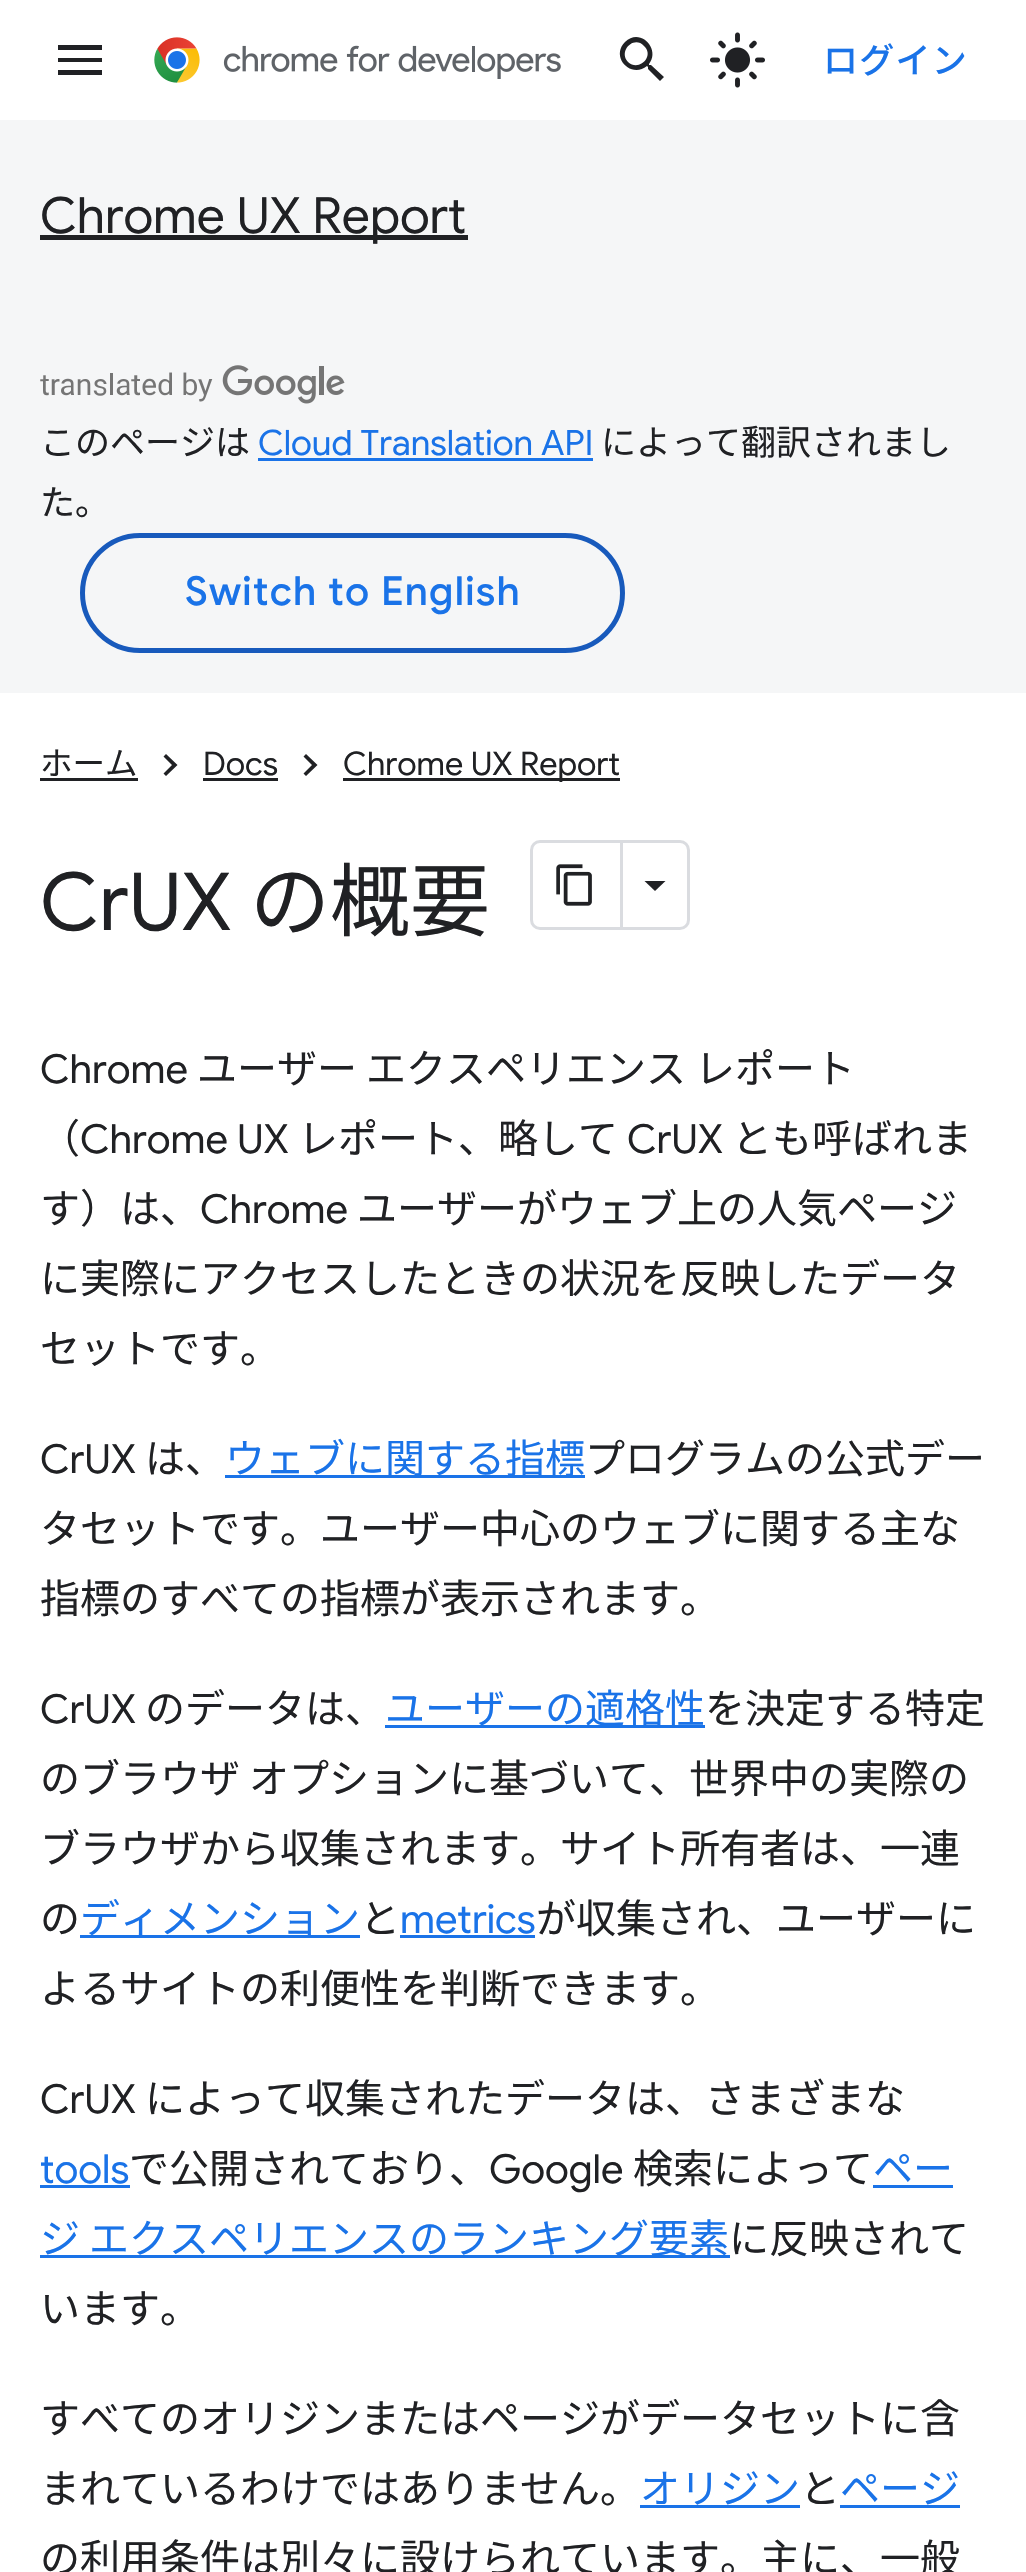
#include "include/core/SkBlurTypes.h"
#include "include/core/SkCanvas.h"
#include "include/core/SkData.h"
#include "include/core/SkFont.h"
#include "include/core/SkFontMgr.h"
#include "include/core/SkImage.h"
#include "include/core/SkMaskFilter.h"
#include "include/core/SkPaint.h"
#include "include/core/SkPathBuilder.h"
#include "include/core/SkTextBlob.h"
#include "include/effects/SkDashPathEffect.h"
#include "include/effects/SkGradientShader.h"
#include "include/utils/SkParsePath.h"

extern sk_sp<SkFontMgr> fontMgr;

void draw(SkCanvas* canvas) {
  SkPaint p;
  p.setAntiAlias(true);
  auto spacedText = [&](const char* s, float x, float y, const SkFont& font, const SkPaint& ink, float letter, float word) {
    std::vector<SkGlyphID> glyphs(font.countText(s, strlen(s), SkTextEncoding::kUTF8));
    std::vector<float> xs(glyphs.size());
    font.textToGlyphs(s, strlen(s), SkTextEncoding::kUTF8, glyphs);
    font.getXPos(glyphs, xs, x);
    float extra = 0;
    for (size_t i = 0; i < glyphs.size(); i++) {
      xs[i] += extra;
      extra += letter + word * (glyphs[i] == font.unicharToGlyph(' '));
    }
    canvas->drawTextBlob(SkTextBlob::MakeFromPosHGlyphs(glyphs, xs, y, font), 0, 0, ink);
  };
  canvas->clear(SK_ColorWHITE);
  p.setColor(SkColorSetRGB(32, 33, 36));
  canvas->drawPath(SkPathBuilder().moveTo(58, 45).lineTo(102, 45).lineTo(102, 50).lineTo(58, 50).close().moveTo(58, 62).lineTo(58, 58).lineTo(102, 58).lineTo(102, 62).close().moveTo(58, 75).lineTo(58, 70).lineTo(102, 70).lineTo(102, 75).close().detach(), p);
  canvas->drawImageRect(SkImages::DeferredFromEncodedData(SkData::MakeFromFileName("images/1.png")), SkRect::MakeLTRB(154, 37, 561, 83), SkSamplingOptions());
  canvas->drawPath(SkPathBuilder().moveTo(628, 62).cubicTo(639, 72, 655, 56, 644, 46).cubicTo(634, 35, 618, 51, 628, 62).close().moveTo(651, 65).lineTo(664, 77).lineTo(660, 81).lineTo(648, 69).lineTo(648, 67).lineTo(647, 66).cubicTo(631, 79, 610, 57, 625, 42).cubicTo(640, 27, 661, 49, 649, 64).lineTo(649, 65).close().detach(), p);
  canvas->drawImageRect(SkImages::DeferredFromEncodedData(SkData::MakeFromFileName("images/2.png")), SkRect::MakeLTRB(710, 32, 765, 88), SkSamplingOptions());
  p.setColor(SkColorSetRGB(245, 246, 247));
  canvas->drawRect(SkRect::MakeLTRB(0, 120, 1026, 693), p);
  p.setColor(SkColorSetRGB(32, 33, 36));
  canvas->drawRect(SkRect::MakeLTRB(40, 235, 468, 240), p);
  canvas->drawImageRect(SkImages::DeferredFromEncodedData(SkData::MakeFromFileName("images/3.png")), SkRect::MakeLTRB(40, 365, 345, 404), SkSamplingOptions());
  p.setColor(SkColorSetRGB(26, 115, 232));
  canvas->drawRect(SkRect::MakeLTRB(258, 458, 593, 461), p);
  p.setStyle(SkPaint::kStroke_Style);
  p.setStrokeWidth(5);
  p.setColor(SkColorSetRGB(24, 90, 188));
  canvas->drawRoundRect(SkRect::MakeLTRB(82.5f, 535.5f, 622.5f, 650.5f), 57.5f, 57.5f, p);
  p.setStyle(SkPaint::kFill_Style);
  p.setColor(SkColorSetRGB(32, 33, 36));
  canvas->drawRect(SkRect::MakeLTRB(40, 778, 138, 781), p);
  canvas->drawPath(SkPathBuilder().moveTo(166, 754).lineTo(177.5f, 765).lineTo(166, 776).lineTo(163.5f, 773.5f).lineTo(172, 765).lineTo(163.5f, 756.5f).close().detach(), p);
  canvas->drawRect(SkRect::MakeLTRB(203, 778, 278, 781), p);
  canvas->drawPath(SkPathBuilder().moveTo(306, 754).lineTo(317.5f, 765).lineTo(306, 776).lineTo(303.5f, 773.5f).lineTo(312, 765).lineTo(303.5f, 756.5f).close().detach(), p);
  canvas->drawRect(SkRect::MakeLTRB(343, 778, 620, 781), p);
  p.setStyle(SkPaint::kStroke_Style);
  p.setStrokeWidth(3);
  p.setColor(SkColorSetRGB(218, 220, 224));
  canvas->drawRoundRect(SkRect::MakeLTRB(531.5f, 841.5f, 688.5f, 928.5f), 8.5f, 8.5f, p);
  p.setStyle(SkPaint::kFill_Style);
  canvas->drawRect(SkRect::MakeLTRB(620, 843, 623, 928), p);
  canvas->drawImageRect(SkImages::DeferredFromEncodedData(SkData::MakeFromFileName("images/4.png")), SkRect::MakeLTRB(556, 864, 592, 906), SkSamplingOptions());
  p.setColor(SkColorSetRGB(32, 33, 36));
  canvas->drawPath(SkPathBuilder().moveTo(644.5f, 881).lineTo(665.5f, 881).lineTo(655, 891).close().detach(), p);
  p.setColor(SkColorSetRGB(26, 115, 232));
  canvas->drawRect(SkRect::MakeLTRB(225, 1475, 585, 1478), p);
  canvas->drawRect(SkRect::MakeLTRB(385, 1725, 705, 1728), p);
  canvas->drawRect(SkRect::MakeLTRB(80, 1935, 360, 1938), p);
  canvas->drawRect(SkRect::MakeLTRB(400, 1935, 535, 1938), p);
  canvas->drawRect(SkRect::MakeLTRB(40, 2185, 130, 2188), p);
  canvas->drawRect(SkRect::MakeLTRB(873, 2185, 953, 2188), p);
  canvas->drawRect(SkRect::MakeLTRB(40, 2255, 730, 2258), p);
  canvas->drawRect(SkRect::MakeLTRB(640, 2505, 800, 2508), p);
  canvas->drawRect(SkRect::MakeLTRB(840, 2505, 960, 2508), p);
  SkFont font1(fontMgr->matchFamilyStyle("Noto Sans JP", SkFontStyle(500, SkFontStyle::kNormal_Width, SkFontStyle::kUpright_Slant)), 35);
  font1.setSubpixel(true);
  spacedText("ログイン", 823, 73, font1, p, 1.25f, 0);
  SkFont font2(fontMgr->matchFamilyStyle("Google Sans", SkFontStyle::Normal()), 50);
  font2.setSubpixel(true);
  p.setColor(SkColorSetRGB(32, 33, 36));
  canvas->drawString("Chrome UX Report", 40, 233, font2, p);
  SkFont font3(fontMgr->matchFamilyStyle("Noto Sans JP", SkFontStyle::Normal()), 35);
  font3.setSubpixel(true);
  canvas->drawString("このページは", 40, 455, font3, p);
  SkFont font4(fontMgr->matchFamilyStyle("Google Sans", SkFontStyle::Normal()), 35);
  font4.setSubpixel(true);
  p.setColor(SkColorSetRGB(26, 115, 232));
  canvas->drawString("Cloud Translation API", 258, 455, font4, p);
  p.setColor(SkColorSetRGB(32, 33, 36));
  canvas->drawString("によって翻訳されまし", 601, 455, font3, p);
  canvas->drawString("た。", 40, 515, font3, p);
  SkFont font5(fontMgr->matchFamilyStyle("Google Sans", SkFontStyle(500, SkFontStyle::kNormal_Width, SkFontStyle::kUpright_Slant)), 40);
  font5.setSubpixel(true);
  p.setColor(SkColorSetRGB(26, 115, 232));
  spacedText("Switch to English", 185, 605, font5, p, 1.25f, 0);
  SkFont font6(fontMgr->matchFamilyStyle("Noto Sans JP", SkFontStyle::Normal()), 32.5f);
  font6.setSubpixel(true);
  p.setColor(SkColorSetRGB(32, 33, 36));
  canvas->drawString("ホーム", 40, 775, font6, p);
  SkFont font7(fontMgr->matchFamilyStyle("Google Sans", SkFontStyle::Normal()), 32.5f);
  font7.setSubpixel(true);
  canvas->drawString("Docs", 203, 775, font7, p);
  canvas->drawString("Chrome UX Report", 343, 775, font7, p);
  SkFont font8(fontMgr->matchFamilyStyle("Google Sans", SkFontStyle::Normal()), 80);
  font8.setSubpixel(true);
  canvas->drawString("CrUX", 40, 930, font8, p);
  SkFont font9(fontMgr->matchFamilyStyle("Noto Sans JP", SkFontStyle::Normal()), 80);
  font9.setSubpixel(true);
  canvas->drawString("の概要", 250, 930, font9, p);
  SkFont font10(fontMgr->matchFamilyStyle("Google Sans", SkFontStyle::Normal()), 40);
  font10.setSubpixel(true);
  canvas->drawString("Chrome", 40, 1083, font10, p);
  SkFont font11(fontMgr->matchFamilyStyle("Noto Sans JP", SkFontStyle::Normal()), 40);
  font11.setSubpixel(true);
  canvas->drawString("ユーザー エクスペリエンス レポート", 197, 1083, font11, p);
  canvas->drawString("（", 40, 1153, font11, p);
  canvas->drawString("Chrome UX", 80, 1153, font10, p);
  canvas->drawString("レポート、略して", 298, 1153, font11, p);
  canvas->drawString("CrUX", 627, 1153, font10, p);
  canvas->drawString("とも呼ばれま", 732, 1153, font11, p);
  canvas->drawString("す）は、", 40, 1223, font11, p);
  canvas->drawString("Chrome", 200, 1223, font10, p);
  canvas->drawString("ユーザーがウェブ上の人気ページ", 357, 1223, font11, p);
  canvas->drawString("に実際にアクセスしたときの状況を反映したデータ", 40, 1293, font11, p);
  canvas->drawString("セットです。", 40, 1363, font11, p);
  canvas->drawString("CrUX", 40, 1473, font10, p);
  canvas->drawString("は、", 145, 1473, font11, p);
  p.setColor(SkColorSetRGB(26, 115, 232));
  canvas->drawString("ウェブに関する指標", 225, 1473, font11, p);
  p.setColor(SkColorSetRGB(32, 33, 36));
  canvas->drawString("プログラムの公式デー", 585, 1473, font11, p);
  canvas->drawString("タセットです。ユーザー中心のウェブに関する主な", 40, 1543, font11, p);
  canvas->drawString("指標のすべての指標が表示されます。", 40, 1613, font11, p);
  canvas->drawString("CrUX", 40, 1723, font10, p);
  canvas->drawString("のデータは、", 145, 1723, font11, p);
  p.setColor(SkColorSetRGB(26, 115, 232));
  canvas->drawString("ユーザーの適格性", 385, 1723, font11, p);
  p.setColor(SkColorSetRGB(32, 33, 36));
  canvas->drawString("を決定する特定", 705, 1723, font11, p);
  canvas->drawString("のブラウザ オプションに基づいて、世界中の実際の", 40, 1793, font11, p);
  canvas->drawString("ブラウザから収集されます。サイト所有者は、一連", 40, 1863, font11, p);
  canvas->drawString("の", 40, 1933, font11, p);
  p.setColor(SkColorSetRGB(26, 115, 232));
  canvas->drawString("ディメンション", 80, 1933, font11, p);
  p.setColor(SkColorSetRGB(32, 33, 36));
  canvas->drawString("と", 360, 1933, font11, p);
  p.setColor(SkColorSetRGB(26, 115, 232));
  canvas->drawString("metrics", 400, 1933, font10, p);
  p.setColor(SkColorSetRGB(32, 33, 36));
  canvas->drawString("が収集され、ユーザーに", 536, 1933, font11, p);
  canvas->drawString("よるサイトの利便性を判断できます。", 40, 2003, font11, p);
  canvas->drawString("CrUX", 40, 2113, font10, p);
  canvas->drawString("によって収集されたデータは、さまざまな", 145, 2113, font11, p);
  p.setColor(SkColorSetRGB(26, 115, 232));
  canvas->drawString("tools", 40, 2183, font10, p);
  p.setColor(SkColorSetRGB(32, 33, 36));
  canvas->drawString("で公開されており、", 129, 2183, font11, p);
  canvas->drawString("Google", 489, 2183, font10, p);
  canvas->drawString("検索によって", 633, 2183, font11, p);
  p.setColor(SkColorSetRGB(26, 115, 232));
  canvas->drawString("ペー", 873, 2183, font11, p);
  canvas->drawString("ジ エクスペリエンスのランキング要素", 40, 2253, font11, p);
  p.setColor(SkColorSetRGB(32, 33, 36));
  canvas->drawString("に反映されて", 729, 2253, font11, p);
  canvas->drawString("います。", 40, 2323, font11, p);
  canvas->drawString("すべてのオリジンまたはページがデータセットに含", 40, 2433, font11, p);
  canvas->drawString("まれているわけではありません。", 40, 2503, font11, p);
  p.setColor(SkColorSetRGB(26, 115, 232));
  canvas->drawString("オリジン", 640, 2503, font11, p);
  p.setColor(SkColorSetRGB(32, 33, 36));
  canvas->drawString("と", 800, 2503, font11, p);
  p.setColor(SkColorSetRGB(26, 115, 232));
  canvas->drawString("ページ", 840, 2503, font11, p);
  p.setColor(SkColorSetRGB(32, 33, 36));
  canvas->drawString("の利用条件は別々に設けられています。主に、一般", 40, 2573, font11, p);
}
